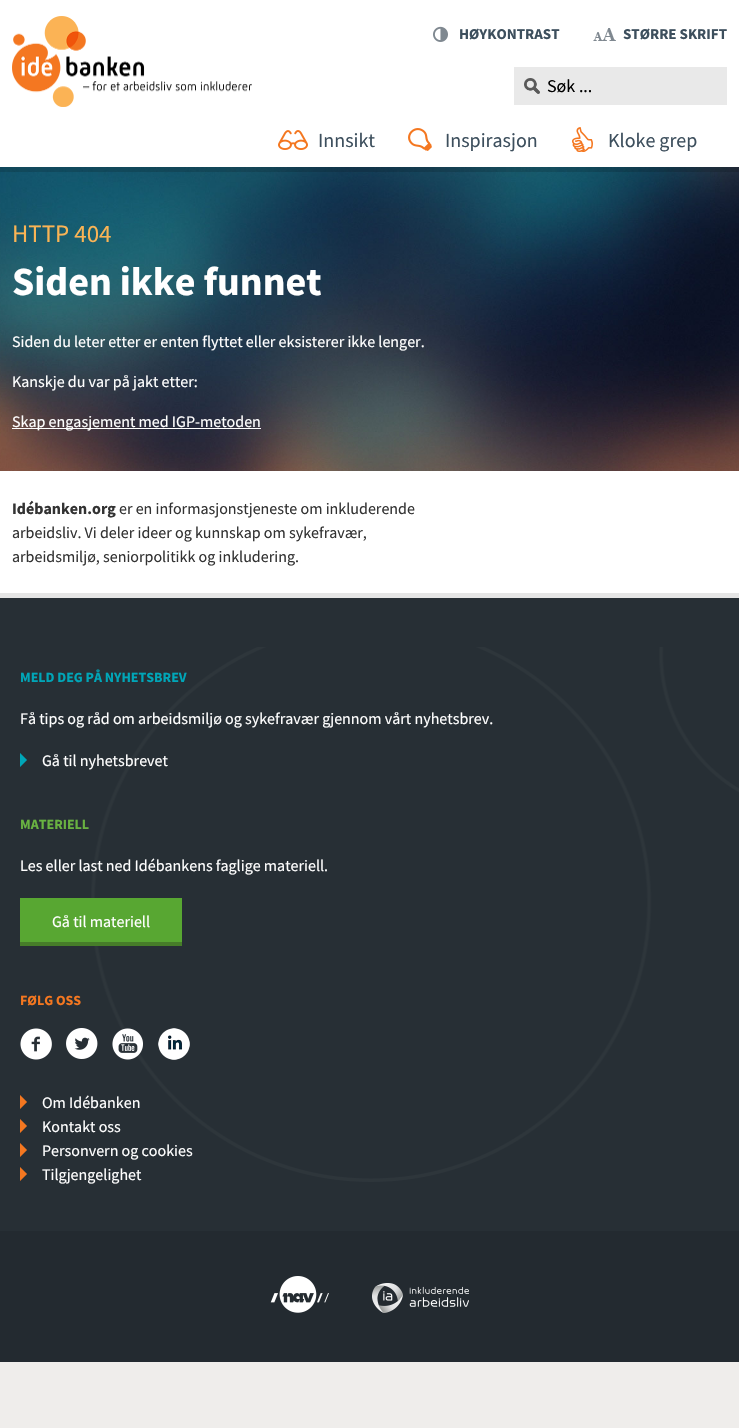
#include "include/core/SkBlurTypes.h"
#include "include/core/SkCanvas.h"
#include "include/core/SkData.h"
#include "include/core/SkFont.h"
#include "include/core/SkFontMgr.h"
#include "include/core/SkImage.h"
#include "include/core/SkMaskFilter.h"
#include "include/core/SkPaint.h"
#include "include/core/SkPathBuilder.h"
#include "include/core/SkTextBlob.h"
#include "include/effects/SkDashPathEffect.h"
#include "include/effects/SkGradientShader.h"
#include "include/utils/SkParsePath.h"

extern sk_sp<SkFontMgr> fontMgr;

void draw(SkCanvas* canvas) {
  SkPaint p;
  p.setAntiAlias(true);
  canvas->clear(SkColorSetRGB(239, 237, 235));
  canvas->drawImageRect(SkImages::DeferredFromEncodedData(SkData::MakeFromFileName("images/8.png")), SkRect::MakeLTRB(0, 167, 739, 471), SkSamplingOptions());
  p.setColor(SkColorSetARGB(38, 0, 0, 0));
  canvas->drawRect(SkRect::MakeLTRB(0, 167, 739, 172), p);
  p.setColor(SK_ColorWHITE);
  canvas->drawRect(SkRect::MakeLTRB(0, 0, 739, 167), p);
  canvas->drawImageRect(SkImages::DeferredFromEncodedData(SkData::MakeFromFileName("images/1.png")), SkRect::MakeLTRB(12, 16, 252, 107), SkSamplingOptions());
  canvas->drawImageRect(SkImages::DeferredFromEncodedData(SkData::MakeFromFileName("images/2.png")), SkRect::MakeLTRB(433, 26, 448, 42), SkSamplingOptions());
  canvas->drawImageRect(SkImages::DeferredFromEncodedData(SkData::MakeFromFileName("images/3.png")), SkRect::MakeLTRB(593, 28, 616, 41), SkSamplingOptions());
  p.setColor(SkColorSetRGB(233, 233, 233));
  canvas->drawRect(SkRect::MakeLTRB(514, 67, 727, 105), p);
  canvas->drawImageRect(SkImages::DeferredFromEncodedData(SkData::MakeFromFileName("images/4.png")), SkRect::MakeLTRB(524, 78, 540, 94), SkSamplingOptions());
  canvas->drawImageRect(SkImages::DeferredFromEncodedData(SkData::MakeFromFileName("images/5.png")), SkRect::MakeLTRB(278, 130, 308, 150), SkSamplingOptions());
  canvas->drawImageRect(SkImages::DeferredFromEncodedData(SkData::MakeFromFileName("images/6.png")), SkRect::MakeLTRB(408, 128, 432, 151), SkSamplingOptions());
  canvas->drawImageRect(SkImages::DeferredFromEncodedData(SkData::MakeFromFileName("images/7.png")), SkRect::MakeLTRB(572, 127, 593, 152), SkSamplingOptions());
  p.setColor(SK_ColorWHITE);
  canvas->drawRect(SkRect::MakeLTRB(12, 428, 261, 429), p);
  canvas->drawRect(SkRect::MakeLTRB(0, 471, 739, 593), p);
  p.setColor(SkColorSetRGB(229, 229, 229));
  canvas->drawRect(SkRect::MakeLTRB(0, 593, 739, 598), p);
  p.setColor(SkColorSetRGB(39, 47, 53));
  canvas->drawRect(SkRect::MakeLTRB(0, 598, 739, 1231), p);
  canvas->drawImageRect(SkImages::DeferredFromEncodedData(SkData::MakeFromFileName("images/9.png")), SkRect::MakeLTRB(91, 647, 739, 1182), SkSamplingOptions());
  canvas->drawImageRect(SkImages::DeferredFromEncodedData(SkData::MakeFromFileName("images/10.png")), SkRect::MakeLTRB(20, 753, 27, 767), SkSamplingOptions());
  p.setColor(SkColorSetRGB(88, 167, 50));
  canvas->drawRect(SkRect::MakeLTRB(20, 898, 182, 942), p);
  p.setColor(SkColorSetRGB(70, 125, 41));
  canvas->drawRect(SkRect::MakeLTRB(20, 942, 182, 946), p);
  canvas->drawImageRect(SkImages::DeferredFromEncodedData(SkData::MakeFromFileName("images/11.png")), SkRect::MakeLTRB(20, 1028, 52, 1060), SkSamplingOptions());
  canvas->drawImageRect(SkImages::DeferredFromEncodedData(SkData::MakeFromFileName("images/12.png")), SkRect::MakeLTRB(66, 1028, 98, 1059), SkSamplingOptions());
  canvas->drawImageRect(SkImages::DeferredFromEncodedData(SkData::MakeFromFileName("images/13.png")), SkRect::MakeLTRB(112, 1028, 143, 1060), SkSamplingOptions());
  canvas->drawImageRect(SkImages::DeferredFromEncodedData(SkData::MakeFromFileName("images/14.png")), SkRect::MakeLTRB(158, 1028, 190, 1060), SkSamplingOptions());
  canvas->drawImageRect(SkImages::DeferredFromEncodedData(SkData::MakeFromFileName("images/15.png")), SkRect::MakeLTRB(20, 1095, 27, 1109), SkSamplingOptions());
  canvas->drawImageRect(SkImages::DeferredFromEncodedData(SkData::MakeFromFileName("images/15.png")), SkRect::MakeLTRB(20, 1119, 27, 1133), SkSamplingOptions());
  canvas->drawImageRect(SkImages::DeferredFromEncodedData(SkData::MakeFromFileName("images/15.png")), SkRect::MakeLTRB(20, 1143, 27, 1157), SkSamplingOptions());
  canvas->drawImageRect(SkImages::DeferredFromEncodedData(SkData::MakeFromFileName("images/15.png")), SkRect::MakeLTRB(20, 1167, 27, 1181), SkSamplingOptions());
  p.setColor(SkColorSetRGB(35, 42, 48));
  canvas->drawRect(SkRect::MakeLTRB(0, 1231, 739, 1362), p);
  canvas->drawImageRect(SkImages::DeferredFromEncodedData(SkData::MakeFromFileName("images/16.png")), SkRect::MakeLTRB(270, 1276, 329, 1313), SkSamplingOptions());
  canvas->drawImageRect(SkImages::DeferredFromEncodedData(SkData::MakeFromFileName("images/17.png")), SkRect::MakeLTRB(372, 1283, 469, 1313), SkSamplingOptions());
  SkFont font1(fontMgr->matchFamilyStyle("Source Sans Pro", SkFontStyle::Bold()), 15);
  font1.setSubpixel(true);
  p.setColor(SkColorSetRGB(61, 79, 93));
  canvas->drawString("HØYKONTRAST", 459, 39, font1, p);
  canvas->drawString("STØRRE SKRIFT", 623, 39, font1, p);
  SkFont font2(fontMgr->matchFamilyStyle("Source Sans Pro", SkFontStyle::Normal()), 18);
  font2.setSubpixel(true);
  p.setColor(SK_ColorBLACK);
  canvas->drawString("Søk ...", 547, 92, font2, p);
  SkFont font3(fontMgr->matchFamilyStyle("Source Sans Pro", SkFontStyle::Normal()), 20);
  font3.setSubpixel(true);
  p.setColor(SkColorSetRGB(61, 79, 93));
  canvas->drawString("Innsikt", 318, 147, font3, p);
  canvas->drawString("Inspirasjon", 445, 147, font3, p);
  canvas->drawString("Kloke grep", 608, 147, font3, p);
  SkFont font4(fontMgr->matchFamilyStyle("Source Sans Pro", SkFontStyle::Normal()), 25);
  font4.setSubpixel(true);
  p.setColor(SkColorSetRGB(250, 180, 85));
  canvas->drawString("HTTP 404", 12, 242, font4, p);
  SkFont font5(fontMgr->matchFamilyStyle("Source Sans Pro", SkFontStyle::Bold()), 40);
  font5.setSubpixel(true);
  p.setColor(SK_ColorWHITE);
  canvas->drawString("Siden ikke funnet", 12, 295, font5, p);
  SkFont font6(fontMgr->matchFamilyStyle("Source Sans Pro", SkFontStyle::Normal()), 16);
  font6.setSubpixel(true);
  canvas->drawString("Siden du leter etter er enten flyttet eller eksisterer ikke lenger.", 12, 347, font6, p);
  canvas->drawString("Kanskje du var på jakt etter:", 12, 387, font6, p);
  canvas->drawString("Skap engasjement med IGP-metoden", 12, 427, font6, p);
  SkFont font7(fontMgr->matchFamilyStyle("Source Sans Pro", SkFontStyle::Bold()), 16);
  font7.setSubpixel(true);
  p.setColor(SkColorSetRGB(51, 51, 51));
  canvas->drawString("Idébanken.org", 12, 514, font7, p);
  canvas->drawString("er en informasjonstjeneste om inkluderende", 119, 514, font6, p);
  canvas->drawString("arbeidsliv. Vi deler ideer og kunnskap om sykefravær,", 12, 538, font6, p);
  canvas->drawString("arbeidsmiljø, seniorpolitikk og inkludering.", 12, 562, font6, p);
  SkFont font8(fontMgr->matchFamilyStyle("Source Sans Pro", SkFontStyle::Bold()), 14);
  font8.setSubpixel(true);
  p.setColor(SkColorSetRGB(0, 166, 184));
  canvas->drawString("MELD DEG PÅ NYHETSBREV", 20, 682, font8, p);
  p.setColor(SK_ColorWHITE);
  canvas->drawString("Få tips og råd om arbeidsmiljø og sykefravær gjennom vårt nyhetsbrev.", 20, 724, font6, p);
  canvas->drawString("Gå til nyhetsbrevet", 42, 766, font6, p);
  p.setColor(SkColorSetRGB(105, 178, 65));
  canvas->drawString("MATERIELL", 20, 829, font8, p);
  p.setColor(SK_ColorWHITE);
  canvas->drawString("Les eller last ned Idébankens faglige materiell.", 20, 871, font6, p);
  canvas->drawString("Gå til materiell", 52, 927, font6, p);
  p.setColor(SkColorSetRGB(244, 119, 32));
  canvas->drawString("FØLG OSS", 20, 1005, font8, p);
  p.setColor(SK_ColorWHITE);
  canvas->drawString("Om Idébanken", 42, 1108, font6, p);
  canvas->drawString("Kontakt oss", 42, 1132, font6, p);
  canvas->drawString("Personvern og cookies", 42, 1156, font6, p);
  canvas->drawString("Tilgjengelighet", 42, 1180, font6, p);
}
